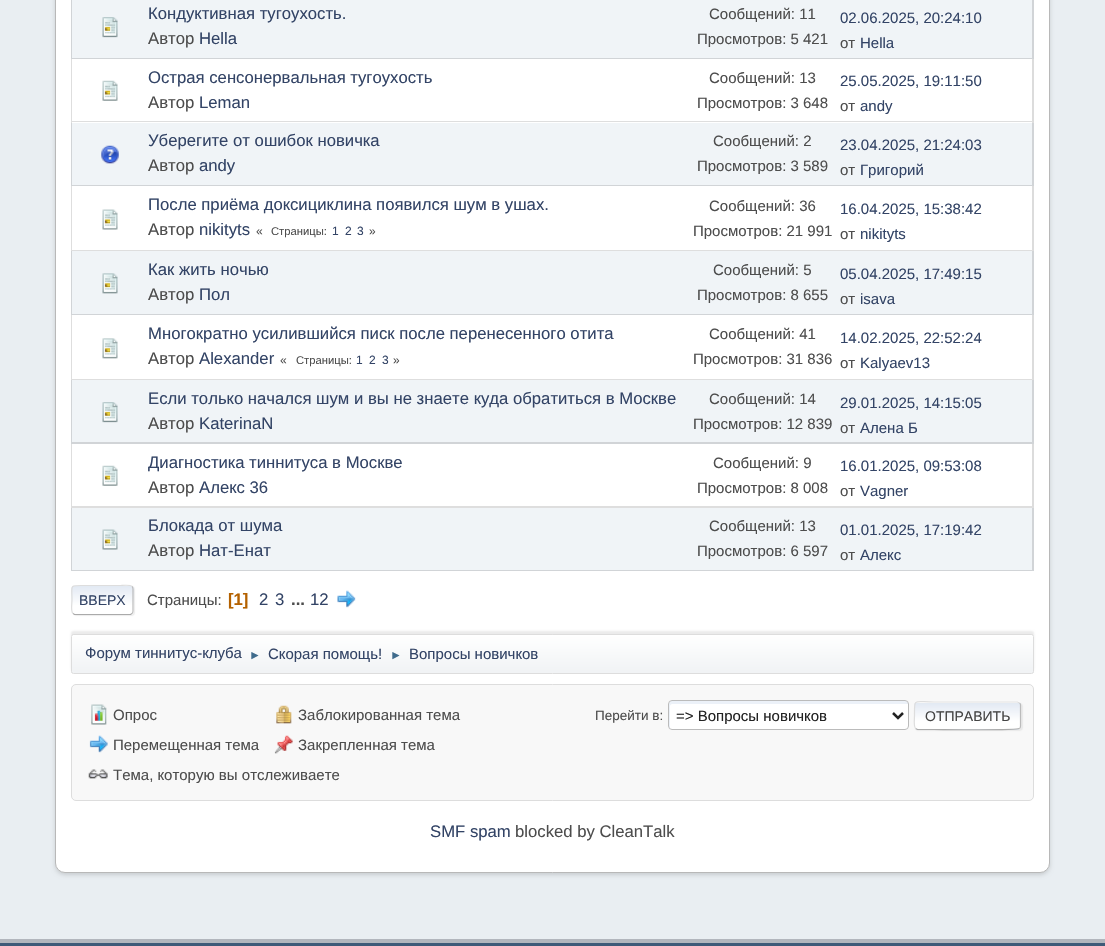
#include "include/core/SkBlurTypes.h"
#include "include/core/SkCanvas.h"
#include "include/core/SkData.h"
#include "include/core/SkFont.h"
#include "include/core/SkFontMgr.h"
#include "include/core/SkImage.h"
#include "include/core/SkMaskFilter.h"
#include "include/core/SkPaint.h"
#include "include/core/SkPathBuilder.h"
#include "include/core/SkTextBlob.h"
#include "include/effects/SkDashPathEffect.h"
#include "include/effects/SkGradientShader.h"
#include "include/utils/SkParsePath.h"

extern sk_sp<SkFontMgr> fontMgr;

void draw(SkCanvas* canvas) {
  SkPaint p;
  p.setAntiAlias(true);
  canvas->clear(SkColorSetRGB(233, 238, 242));
  p.setColor(SkColorSetARGB(36, 0, 0, 0));
  p.setMaskFilter(SkMaskFilter::MakeBlur(kNormal_SkBlurStyle, 2));
  canvas->drawRoundRect(SkRect::MakeLTRB(55, -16, 1050, 875), 10, 10, p);
  p.setMaskFilter(nullptr);
  p.setColor(SK_ColorWHITE);
  canvas->drawRoundRect(SkRect::MakeLTRB(55.5f, -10.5f, 1049.5f, 872.5f), 9.5f, 9.5f, p);
  p.setStyle(SkPaint::kStroke_Style);
  p.setStrokeWidth(1);
  p.setColor(SkColorSetRGB(184, 184, 184));
  canvas->drawRoundRect(SkRect::MakeLTRB(55.5f, -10.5f, 1049.5f, 872.5f), 9.5f, 9.5f, p);
  p.setStyle(SkPaint::kFill_Style);
  p.setColor(SkColorSetRGB(240, 244, 247));
  canvas->drawRect(SkRect::MakeLTRB(71, 0, 1034, 59), p);
  p.setColor(SkColorSetRGB(209, 212, 215));
  canvas->drawPath(SkPathBuilder().moveTo(1034, -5).lineTo(1034, 59).lineTo(1032, 58).lineTo(1032, -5).close().detach(), p);
  p.setColor(SkColorSetARGB(33, 0, 0, 0));
  canvas->drawPath(SkPathBuilder().moveTo(1034, 59).lineTo(71, 59).lineTo(72, 58).lineTo(1032, 58).close().detach(), p);
  canvas->drawPath(SkPathBuilder().moveTo(71, 59).lineTo(71, -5).lineTo(72, -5).lineTo(72, 58).close().detach(), p);
  canvas->drawImageRect(SkImages::DeferredFromEncodedData(SkData::MakeFromFileName("images/1.png")), SkRect::MakeLTRB(102, 17, 118, 38), SkSamplingOptions());
  p.setColor(SkColorSetRGB(220, 220, 220));
  canvas->drawPath(SkPathBuilder().moveTo(1034, 59).lineTo(1034, 122).lineTo(1032, 121).lineTo(1032, 59).close().detach(), p);
  p.setColor(SkColorSetARGB(33, 0, 0, 0));
  canvas->drawPath(SkPathBuilder().moveTo(1034, 122).lineTo(71, 122).lineTo(72, 121).lineTo(1032, 121).close().detach(), p);
  canvas->drawPath(SkPathBuilder().moveTo(71, 122).lineTo(71, 59).lineTo(72, 59).lineTo(72, 121).close().detach(), p);
  canvas->drawImageRect(SkImages::DeferredFromEncodedData(SkData::MakeFromFileName("images/2.png")), SkRect::MakeLTRB(102, 80, 118, 101), SkSamplingOptions());
  p.setColor(SkColorSetRGB(240, 244, 247));
  canvas->drawRect(SkRect::MakeLTRB(71, 123, 1034, 186), p);
  p.setColor(SkColorSetARGB(33, 0, 0, 0));
  canvas->drawPath(SkPathBuilder().moveTo(1034, 122).lineTo(1034, 186).lineTo(1032, 185).lineTo(1032, 122).close().detach(), p);
  canvas->drawPath(SkPathBuilder().moveTo(1034, 186).lineTo(71, 186).lineTo(72, 185).lineTo(1032, 185).close().detach(), p);
  canvas->drawPath(SkPathBuilder().moveTo(71, 186).lineTo(71, 122).lineTo(72, 122).lineTo(72, 185).close().detach(), p);
  canvas->drawImageRect(SkImages::DeferredFromEncodedData(SkData::MakeFromFileName("images/3.png")), SkRect::MakeLTRB(101, 145, 119, 164), SkSamplingOptions());
  p.setColor(SkColorSetRGB(220, 220, 220));
  canvas->drawPath(SkPathBuilder().moveTo(1034, 186).lineTo(1034, 251).lineTo(1032, 250).lineTo(1032, 186).close().detach(), p);
  p.setColor(SkColorSetARGB(33, 0, 0, 0));
  canvas->drawPath(SkPathBuilder().moveTo(1034, 251).lineTo(71, 251).lineTo(72, 250).lineTo(1032, 250).close().detach(), p);
  canvas->drawPath(SkPathBuilder().moveTo(71, 251).lineTo(71, 186).lineTo(72, 186).lineTo(72, 250).close().detach(), p);
  canvas->drawImageRect(SkImages::DeferredFromEncodedData(SkData::MakeFromFileName("images/4.png")), SkRect::MakeLTRB(102, 209, 118, 230), SkSamplingOptions());
  p.setColor(SkColorSetRGB(240, 244, 247));
  canvas->drawRect(SkRect::MakeLTRB(71, 251, 1034, 315), p);
  p.setColor(SkColorSetRGB(209, 212, 215));
  canvas->drawPath(SkPathBuilder().moveTo(1034, 251).lineTo(1034, 315).lineTo(1032, 314).lineTo(1032, 251).close().detach(), p);
  p.setColor(SkColorSetARGB(33, 0, 0, 0));
  canvas->drawPath(SkPathBuilder().moveTo(1034, 315).lineTo(71, 315).lineTo(72, 314).lineTo(1032, 314).close().detach(), p);
  canvas->drawPath(SkPathBuilder().moveTo(71, 315).lineTo(71, 251).lineTo(72, 251).lineTo(72, 314).close().detach(), p);
  canvas->drawImageRect(SkImages::DeferredFromEncodedData(SkData::MakeFromFileName("images/5.png")), SkRect::MakeLTRB(102, 273, 118, 294), SkSamplingOptions());
  p.setColor(SkColorSetRGB(220, 220, 220));
  canvas->drawPath(SkPathBuilder().moveTo(1034, 315).lineTo(1034, 380).lineTo(1032, 379).lineTo(1032, 315).close().detach(), p);
  p.setColor(SkColorSetARGB(33, 0, 0, 0));
  canvas->drawPath(SkPathBuilder().moveTo(1034, 380).lineTo(71, 380).lineTo(72, 379).lineTo(1032, 379).close().detach(), p);
  canvas->drawPath(SkPathBuilder().moveTo(71, 380).lineTo(71, 315).lineTo(72, 315).lineTo(72, 379).close().detach(), p);
  canvas->drawImageRect(SkImages::DeferredFromEncodedData(SkData::MakeFromFileName("images/6.png")), SkRect::MakeLTRB(102, 338, 118, 359), SkSamplingOptions());
  p.setColor(SkColorSetRGB(240, 244, 247));
  canvas->drawRect(SkRect::MakeLTRB(71, 380, 1034, 444), p);
  p.setColor(SkColorSetRGB(209, 212, 215));
  canvas->drawPath(SkPathBuilder().moveTo(1034, 380).lineTo(1034, 444).lineTo(1032, 442).lineTo(1032, 380).close().detach(), p);
  p.setColor(SkColorSetARGB(33, 0, 0, 0));
  canvas->drawPath(SkPathBuilder().moveTo(1034, 444).lineTo(71, 444).lineTo(72, 442).lineTo(1032, 442).close().detach(), p);
  canvas->drawPath(SkPathBuilder().moveTo(71, 444).lineTo(71, 380).lineTo(72, 380).lineTo(72, 442).close().detach(), p);
  canvas->drawImageRect(SkImages::DeferredFromEncodedData(SkData::MakeFromFileName("images/1.png")), SkRect::MakeLTRB(102, 402, 118, 423), SkSamplingOptions());
  p.setColor(SkColorSetRGB(220, 220, 220));
  canvas->drawPath(SkPathBuilder().moveTo(1034, 444).lineTo(1034, 508).lineTo(1032, 506).lineTo(1032, 444).close().detach(), p);
  p.setColor(SkColorSetARGB(33, 0, 0, 0));
  canvas->drawPath(SkPathBuilder().moveTo(1034, 508).lineTo(71, 508).lineTo(72, 506).lineTo(1032, 506).close().detach(), p);
  canvas->drawPath(SkPathBuilder().moveTo(71, 508).lineTo(71, 444).lineTo(72, 444).lineTo(72, 506).close().detach(), p);
  canvas->drawImageRect(SkImages::DeferredFromEncodedData(SkData::MakeFromFileName("images/2.png")), SkRect::MakeLTRB(102, 465, 118, 486), SkSamplingOptions());
  p.setColor(SkColorSetRGB(240, 244, 247));
  canvas->drawRect(SkRect::MakeLTRB(71, 508, 1034, 571), p);
  p.setColor(SkColorSetRGB(209, 212, 215));
  canvas->drawPath(SkPathBuilder().moveTo(1034, 508).lineTo(1034, 571).lineTo(1032, 570).lineTo(1032, 508).close().detach(), p);
  p.setColor(SkColorSetARGB(33, 0, 0, 0));
  canvas->drawPath(SkPathBuilder().moveTo(1034, 571).lineTo(71, 571).lineTo(72, 570).lineTo(1032, 570).close().detach(), p);
  canvas->drawPath(SkPathBuilder().moveTo(71, 571).lineTo(71, 508).lineTo(72, 508).lineTo(72, 570).close().detach(), p);
  canvas->drawImageRect(SkImages::DeferredFromEncodedData(SkData::MakeFromFileName("images/7.png")), SkRect::MakeLTRB(102, 529, 118, 550), SkSamplingOptions());
  p.setColor(SkColorSetARGB(145, 221, 221, 221));
  p.setMaskFilter(SkMaskFilter::MakeBlur(kNormal_SkBlurStyle, 0.5f));
  canvas->drawRoundRect(SkRect::MakeLTRB(73, 586, 135, 616), 4, 4, p);
  p.setMaskFilter(nullptr);
  p.setColor(SK_ColorWHITE);
  canvas->drawRoundRect(SkRect::MakeLTRB(71, 585, 134, 615), 4, 4, p);
  canvas->save();
  canvas->clipPath(SkPathBuilder().moveTo(75, 585).lineTo(130, 585).cubicTo(132, 585, 134, 587, 134, 589).lineTo(134, 611).cubicTo(134, 613, 132, 615, 130, 615).lineTo(75, 615).cubicTo(73, 615, 71, 613, 71, 611).lineTo(71, 589).cubicTo(71, 587, 73, 585, 75, 585).close().detach(), true);
  {
    const SkColor colors[] = {SkColorSetRGB(226, 233, 243), SK_ColorWHITE};
    const float stops[] = {0, 0.7f};
    const SkPoint ends[] = {{103, 586}, {103, 614}};
    p.setShader(SkGradientShader::MakeLinear(ends, colors, stops, 2, SkTileMode::kClamp));
    p.setAlpha(255);
  }
  canvas->drawRect(SkRect::MakeLTRB(71, 586, 134, 614), p);
  canvas->restore();
  p.setStyle(SkPaint::kStroke_Style);
  p.setStrokeWidth(1.2f);
  p.setShader(nullptr);
  p.setColor(SkColorSetRGB(187, 187, 187));
  canvas->drawPath(SkPathBuilder().moveTo(132, 586.5f).cubicTo(133, 587, 133, 588, 133, 589).lineTo(133, 611).cubicTo(133, 612, 133, 613, 132, 613.5f).detach(), p);
  p.setColor(SkColorSetRGB(170, 170, 170));
  canvas->drawPath(SkPathBuilder().moveTo(132, 613.5f).lineTo(130.5f, 614.5f).lineTo(74.5f, 614.5f).lineTo(73, 613.5f).detach(), p);
  p.setColor(SkColorSetRGB(221, 221, 221));
  canvas->drawPath(SkPathBuilder().moveTo(73, 613.5f).cubicTo(70.5f, 611.5f, 72, 602.5f, 72, 600).cubicTo(72, 584.5f, 69, 585.5f, 84, 585.5f).lineTo(121, 585.5f).cubicTo(122, 585.5f, 130, 584.5f, 132, 586.5f).detach(), p);
  canvas->drawImageRect(SkImages::DeferredFromEncodedData(SkData::MakeFromFileName("images/8.png")), SkRect::MakeLTRB(337, 590, 356, 608), SkSamplingOptions());
  p.setStyle(SkPaint::kFill_Style);
  p.setColor(SkColorSetARGB(20, 0, 0, 0));
  p.setMaskFilter(SkMaskFilter::MakeBlur(kNormal_SkBlurStyle, 1));
  canvas->drawRoundRect(SkRect::MakeLTRB(71, 631, 1034, 671), 2.5f, 2.5f, p);
  p.setMaskFilter(nullptr);
  canvas->save();
  canvas->clipPath(SkPathBuilder().moveTo(73.5f, 634).lineTo(1031.5f, 634).cubicTo(1033, 634, 1034, 635, 1034, 636.5f).lineTo(1034, 671.5f).cubicTo(1034, 673, 1033, 674, 1031.5f, 674).lineTo(73.5f, 674).cubicTo(72, 674, 71, 673, 71, 671.5f).lineTo(71, 636.5f).cubicTo(71, 635, 72, 634, 73.5f, 634).close().detach(), true);
  {
    const SkColor colors[] = {SK_ColorWHITE, SkColorSetRGB(241, 243, 245)};
    const float stops[] = {0, 0.95f};
    const SkPoint ends[] = {{553, 635}, {553, 673}};
    p.setShader(SkGradientShader::MakeLinear(ends, colors, stops, 2, SkTileMode::kClamp));
    p.setAlpha(255);
  }
  canvas->drawRect(SkRect::MakeLTRB(71, 635, 1034, 673), p);
  canvas->restore();
  p.setStyle(SkPaint::kStroke_Style);
  p.setStrokeWidth(1);
  p.setShader(nullptr);
  p.setColor(SkColorSetRGB(221, 221, 221));
  canvas->drawRoundRect(SkRect::MakeLTRB(71.5f, 634.5f, 1033.5f, 673.5f), 2, 2, p);
  p.setStyle(SkPaint::kFill_Style);
  p.setColor(SkColorSetRGB(248, 248, 248));
  canvas->drawRoundRect(SkRect::MakeLTRB(71.5f, 684.5f, 1033.5f, 800.5f), 4.5f, 4.5f, p);
  p.setStyle(SkPaint::kStroke_Style);
  p.setColor(SkColorSetRGB(221, 221, 221));
  canvas->drawRoundRect(SkRect::MakeLTRB(71.5f, 684.5f, 1033.5f, 800.5f), 4.5f, 4.5f, p);
  canvas->drawImageRect(SkImages::DeferredFromEncodedData(SkData::MakeFromFileName("images/9.png")), SkRect::MakeLTRB(91, 704, 107, 725), SkSamplingOptions());
  canvas->drawImageRect(SkImages::DeferredFromEncodedData(SkData::MakeFromFileName("images/10.png")), SkRect::MakeLTRB(89, 735, 108, 753), SkSamplingOptions());
  canvas->drawImageRect(SkImages::DeferredFromEncodedData(SkData::MakeFromFileName("images/11.png")), SkRect::MakeLTRB(276, 705, 292, 724), SkSamplingOptions());
  canvas->drawImageRect(SkImages::DeferredFromEncodedData(SkData::MakeFromFileName("images/12.png")), SkRect::MakeLTRB(274, 735, 293, 754), SkSamplingOptions());
  canvas->drawImageRect(SkImages::DeferredFromEncodedData(SkData::MakeFromFileName("images/13.png")), SkRect::MakeLTRB(88, 769, 108, 779), SkSamplingOptions());
  p.setStyle(SkPaint::kFill_Style);
  p.setColor(SK_ColorWHITE);
  canvas->drawRoundRect(SkRect::MakeLTRB(668, 700, 909, 730), 4, 4, p);
  p.setColor(SkColorSetRGB(236, 241, 248));
  canvas->drawPath(SkPathBuilder().moveTo(672, 704).lineTo(906, 704).lineTo(908, 704).cubicTo(908, 702, 907, 701, 906, 701).lineTo(672, 701).cubicTo(670, 701, 669, 702, 669, 704).lineTo(669, 726).cubicTo(669, 727, 669, 728, 670, 729).lineTo(670, 706).cubicTo(670, 705, 671, 704, 672, 704).close().detach(), p);
  p.setStyle(SkPaint::kStroke_Style);
  p.setColor(SkColorSetRGB(187, 187, 187));
  canvas->drawRoundRect(SkRect::MakeLTRB(668.5f, 700.5f, 908.5f, 729.5f), 3.5f, 3.5f, p);
  p.setStrokeWidth(2.5f);
  p.setColor(SkColorSetRGB(34, 34, 34));
  canvas->drawPath(SkPathBuilder().moveTo(893, 713).lineTo(898, 718).lineTo(903, 713).detach(), p);
  p.setStyle(SkPaint::kFill_Style);
  p.setColor(SkColorSetARGB(145, 221, 221, 221));
  p.setMaskFilter(SkMaskFilter::MakeBlur(kNormal_SkBlurStyle, 0.5f));
  canvas->drawRoundRect(SkRect::MakeLTRB(915, 703, 1023, 731), 4, 4, p);
  p.setMaskFilter(nullptr);
  p.setColor(SK_ColorWHITE);
  canvas->drawRoundRect(SkRect::MakeLTRB(914, 701, 1021, 730), 4, 4, p);
  canvas->save();
  canvas->clipPath(SkPathBuilder().moveTo(918, 701).lineTo(1017, 701).cubicTo(1019, 701, 1021, 703, 1021, 705).lineTo(1021, 726).cubicTo(1021, 728, 1019, 730, 1017, 730).lineTo(918, 730).cubicTo(916, 730, 914, 728, 914, 726).lineTo(914, 705).cubicTo(914, 703, 916, 701, 918, 701).close().detach(), true);
  {
    const SkColor colors[] = {SkColorSetRGB(226, 233, 243), SK_ColorWHITE};
    const float stops[] = {0, 0.7f};
    const SkPoint ends[] = {{968, 703}, {968, 729}};
    p.setShader(SkGradientShader::MakeLinear(ends, colors, stops, 2, SkTileMode::kClamp));
    p.setAlpha(255);
  }
  canvas->drawRect(SkRect::MakeLTRB(914, 703, 1021, 729), p);
  {
    const SkColor colors[] = {SkColorSetRGB(226, 233, 243), SK_ColorWHITE};
    const float stops[] = {0, 0.7f};
    const SkPoint ends[] = {{968, 729}, {968, 755}};
    p.setShader(SkGradientShader::MakeLinear(ends, colors, stops, 2, SkTileMode::kClamp));
    p.setAlpha(255);
  }
  canvas->drawRect(SkRect::MakeLTRB(914, 729, 1021, 730), p);
  canvas->restore();
  p.setStyle(SkPaint::kStroke_Style);
  p.setStrokeWidth(1.2f);
  p.setShader(nullptr);
  p.setColor(SkColorSetRGB(187, 187, 187));
  canvas->drawPath(SkPathBuilder().moveTo(1019.5f, 703).cubicTo(1020.5f, 703.5f, 1020.5f, 704, 1020.5f, 705).lineTo(1020.5f, 726).cubicTo(1020.5f, 727, 1020.5f, 728, 1019.5f, 728.5f).detach(), p);
  p.setColor(SkColorSetRGB(170, 170, 170));
  canvas->drawPath(SkPathBuilder().moveTo(1019.5f, 728.5f).cubicTo(1017.5f, 730.5f, 943, 729.5f, 934, 729.5f).lineTo(917.5f, 729.5f).lineTo(915.5f, 728.5f).detach(), p);
  p.setColor(SkColorSetRGB(221, 221, 221));
  canvas->drawPath(SkPathBuilder().moveTo(915.5f, 728.5f).cubicTo(913.5f, 726.5f, 914.5f, 718, 914.5f, 715.5f).cubicTo(914.5f, 697.5f, 913, 702, 934, 702).lineTo(1017.5f, 702).lineTo(1019.5f, 703).detach(), p);
  p.setStyle(SkPaint::kFill_Style);
  p.setColor(SkColorSetRGB(62, 90, 120));
  canvas->drawRect(SkRect::MakeLTRB(0, 943, 1105, 946), p);
  p.setColor(SkColorSetRGB(178, 182, 189));
  canvas->drawRect(SkRect::MakeLTRB(0, 939, 1105, 943), p);
  SkFont font1(fontMgr->matchFamilyStyle("Liberation Sans", SkFontStyle::Normal()), 16.7f);
  font1.setSubpixel(true);
  p.setColor(SkColorSetRGB(51, 68, 102));
  canvas->drawString("Кондуктивная тугоухость.", 148, 19, font1, p);
  p.setColor(SkColorSetRGB(77, 77, 77));
  canvas->drawString("Автор", 148, 44, font1, p);
  p.setColor(SkColorSetRGB(51, 68, 102));
  canvas->drawString("Hella", 199, 44, font1, p);
  SkFont font2(fontMgr->matchFamilyStyle("Liberation Sans", SkFontStyle::Normal()), 15);
  font2.setSubpixel(true);
  p.setColor(SkColorSetRGB(77, 77, 77));
  canvas->drawString("Сообщений: 11", 709, 19, font2, p);
  canvas->drawString("Просмотров: 5 421", 697, 44, font2, p);
  p.setColor(SkColorSetRGB(51, 68, 102));
  canvas->drawString("02.06.2025, 20:24:10", 840, 23, font2, p);
  p.setColor(SkColorSetRGB(77, 77, 77));
  canvas->drawString("от", 840, 48, font2, p);
  p.setColor(SkColorSetRGB(51, 68, 102));
  canvas->drawString("Hella", 860, 48, font2, p);
  canvas->drawString("Острая сенсонервальная тугоухость", 148, 83, font1, p);
  p.setColor(SkColorSetRGB(77, 77, 77));
  canvas->drawString("Автор", 148, 108, font1, p);
  p.setColor(SkColorSetRGB(51, 68, 102));
  canvas->drawString("Leman", 199, 108, font1, p);
  p.setColor(SkColorSetRGB(77, 77, 77));
  canvas->drawString("Сообщений: 13", 709, 83, font2, p);
  canvas->drawString("Просмотров: 3 648", 697, 108, font2, p);
  p.setColor(SkColorSetRGB(51, 68, 102));
  canvas->drawString("25.05.2025, 19:11:50", 840, 86, font2, p);
  p.setColor(SkColorSetRGB(77, 77, 77));
  canvas->drawString("от", 840, 111, font2, p);
  p.setColor(SkColorSetRGB(51, 68, 102));
  canvas->drawString("andy", 860, 111, font2, p);
  canvas->drawString("Уберегите от ошибок новичка", 148, 146, font1, p);
  p.setColor(SkColorSetRGB(77, 77, 77));
  canvas->drawString("Автор", 148, 171, font1, p);
  p.setColor(SkColorSetRGB(51, 68, 102));
  canvas->drawString("andy", 199, 171, font1, p);
  p.setColor(SkColorSetRGB(77, 77, 77));
  canvas->drawString("Сообщений: 2", 713, 146, font2, p);
  canvas->drawString("Просмотров: 3 589", 697, 171, font2, p);
  p.setColor(SkColorSetRGB(51, 68, 102));
  canvas->drawString("23.04.2025, 21:24:03", 840, 150, font2, p);
  p.setColor(SkColorSetRGB(77, 77, 77));
  canvas->drawString("от", 840, 175, font2, p);
  p.setColor(SkColorSetRGB(51, 68, 102));
  canvas->drawString("Григорий", 860, 175, font2, p);
  canvas->drawString("После приёма доксициклина появился шум в ушах.", 148, 210, font1, p);
  p.setColor(SkColorSetRGB(77, 77, 77));
  canvas->drawString("Автор", 148, 235, font1, p);
  p.setColor(SkColorSetRGB(51, 68, 102));
  canvas->drawString("nikityts", 199, 235, font1, p);
  SkFont font3(fontMgr->matchFamilyStyle("Liberation Sans", SkFontStyle::Normal()), 12);
  font3.setSubpixel(true);
  p.setColor(SkColorSetRGB(77, 77, 77));
  canvas->drawString("«", 256, 235, font3, p);
  SkFont font4(fontMgr->matchFamilyStyle("Liberation Sans", SkFontStyle::Normal()), 11.25f);
  font4.setSubpixel(true);
  canvas->drawString("Страницы:", 271, 235, font4, p);
  p.setColor(SkColorSetRGB(51, 68, 102));
  canvas->drawString("1", 332, 235, font3, p);
  canvas->drawString("2", 345, 235, font3, p);
  canvas->drawString("3", 357, 235, font3, p);
  p.setColor(SkColorSetRGB(77, 77, 77));
  canvas->drawString("»", 369, 235, font3, p);
  canvas->drawString("Сообщений: 36", 709, 211, font2, p);
  canvas->drawString("Просмотров: 21 991", 693, 236, font2, p);
  p.setColor(SkColorSetRGB(51, 68, 102));
  canvas->drawString("16.04.2025, 15:38:42", 840, 214, font2, p);
  p.setColor(SkColorSetRGB(77, 77, 77));
  canvas->drawString("от", 840, 239, font2, p);
  p.setColor(SkColorSetRGB(51, 68, 102));
  canvas->drawString("nikityts", 860, 239, font2, p);
  canvas->drawString("Как жить ночью", 148, 275, font1, p);
  p.setColor(SkColorSetRGB(77, 77, 77));
  canvas->drawString("Автор", 148, 300, font1, p);
  p.setColor(SkColorSetRGB(51, 68, 102));
  canvas->drawString("Пол", 199, 300, font1, p);
  p.setColor(SkColorSetRGB(77, 77, 77));
  canvas->drawString("Сообщений: 5", 713, 275, font2, p);
  canvas->drawString("Просмотров: 8 655", 697, 300, font2, p);
  p.setColor(SkColorSetRGB(51, 68, 102));
  canvas->drawString("05.04.2025, 17:49:15", 840, 279, font2, p);
  p.setColor(SkColorSetRGB(77, 77, 77));
  canvas->drawString("от", 840, 304, font2, p);
  p.setColor(SkColorSetRGB(51, 68, 102));
  canvas->drawString("isava", 860, 304, font2, p);
  canvas->drawString("Многократно усилившийся писк после перенесенного отита", 148, 339, font1, p);
  p.setColor(SkColorSetRGB(77, 77, 77));
  canvas->drawString("Автор", 148, 364, font1, p);
  p.setColor(SkColorSetRGB(51, 68, 102));
  canvas->drawString("Alexander", 199, 364, font1, p);
  p.setColor(SkColorSetRGB(77, 77, 77));
  canvas->drawString("«", 280, 364, font3, p);
  canvas->drawString("Страницы:", 296, 364, font4, p);
  p.setColor(SkColorSetRGB(51, 68, 102));
  canvas->drawString("1", 356, 364, font3, p);
  canvas->drawString("2", 369, 364, font3, p);
  canvas->drawString("3", 382, 364, font3, p);
  p.setColor(SkColorSetRGB(77, 77, 77));
  canvas->drawString("»", 393, 364, font3, p);
  canvas->drawString("Сообщений: 41", 709, 339, font2, p);
  canvas->drawString("Просмотров: 31 836", 693, 364, font2, p);
  p.setColor(SkColorSetRGB(51, 68, 102));
  canvas->drawString("14.02.2025, 22:52:24", 840, 343, font2, p);
  p.setColor(SkColorSetRGB(77, 77, 77));
  canvas->drawString("от", 840, 368, font2, p);
  p.setColor(SkColorSetRGB(51, 68, 102));
  canvas->drawString("Kalyaev13", 860, 368, font2, p);
  canvas->drawString("Если только начался шум и вы не знаете куда обратиться в Москве", 148, 404, font1, p);
  p.setColor(SkColorSetRGB(77, 77, 77));
  canvas->drawString("Автор", 148, 429, font1, p);
  p.setColor(SkColorSetRGB(51, 68, 102));
  canvas->drawString("KaterinaN", 199, 429, font1, p);
  p.setColor(SkColorSetRGB(77, 77, 77));
  canvas->drawString("Сообщений: 14", 709, 404, font2, p);
  canvas->drawString("Просмотров: 12 839", 693, 429, font2, p);
  p.setColor(SkColorSetRGB(51, 68, 102));
  canvas->drawString("29.01.2025, 14:15:05", 840, 408, font2, p);
  p.setColor(SkColorSetRGB(77, 77, 77));
  canvas->drawString("от", 840, 433, font2, p);
  p.setColor(SkColorSetRGB(51, 68, 102));
  canvas->drawString("Алена Б", 860, 433, font2, p);
  canvas->save();
  canvas->clipRect(SkRect::MakeLTRB(148, 444, 690, 506));
  canvas->drawString("Диагностика тиннитуса в Москве", 148, 468, font1, p);
  canvas->restore();
  p.setColor(SkColorSetRGB(77, 77, 77));
  canvas->drawString("Автор", 148, 493, font1, p);
  p.setColor(SkColorSetRGB(51, 68, 102));
  canvas->drawString("Алекс 36", 199, 493, font1, p);
  p.setColor(SkColorSetRGB(77, 77, 77));
  canvas->drawString("Сообщений: 9", 713, 468, font2, p);
  canvas->drawString("Просмотров: 8 008", 697, 493, font2, p);
  p.setColor(SkColorSetRGB(51, 68, 102));
  canvas->drawString("16.01.2025, 09:53:08", 840, 471, font2, p);
  p.setColor(SkColorSetRGB(77, 77, 77));
  canvas->drawString("от", 840, 496, font2, p);
  p.setColor(SkColorSetRGB(51, 68, 102));
  canvas->drawString("Vagner", 860, 496, font2, p);
  canvas->drawString("Блокада от шума", 148, 531, font1, p);
  p.setColor(SkColorSetRGB(77, 77, 77));
  canvas->drawString("Автор", 148, 556, font1, p);
  p.setColor(SkColorSetRGB(51, 68, 102));
  canvas->drawString("Нат-Енат", 199, 556, font1, p);
  p.setColor(SkColorSetRGB(77, 77, 77));
  canvas->drawString("Сообщений: 13", 709, 531, font2, p);
  canvas->drawString("Просмотров: 6 597", 697, 556, font2, p);
  p.setColor(SkColorSetRGB(51, 68, 102));
  canvas->drawString("01.01.2025, 17:19:42", 840, 535, font2, p);
  p.setColor(SkColorSetRGB(77, 77, 77));
  canvas->drawString("от", 840, 560, font2, p);
  p.setColor(SkColorSetRGB(51, 68, 102));
  canvas->drawString("Алекс", 860, 560, font2, p);
  SkFont font5(fontMgr->matchFamilyStyle("Liberation Sans", SkFontStyle::Normal()), 14);
  font5.setSubpixel(true);
  canvas->drawString("ВВЕРХ", 79, 605, font5, p);
  p.setColor(SkColorSetRGB(77, 77, 77));
  canvas->drawString("Страницы:", 147, 605, font2, p);
  SkFont font6(fontMgr->matchFamilyStyle("Liberation Sans", SkFontStyle::Bold()), 16.7f);
  font6.setSubpixel(true);
  p.setColor(SkColorSetRGB(180, 97, 0));
  canvas->drawString("[1]", 228, 605, font6, p);
  p.setColor(SkColorSetRGB(51, 68, 102));
  canvas->drawString("2", 259, 605, font1, p);
  canvas->drawString("3", 275, 605, font1, p);
  p.setColor(SkColorSetRGB(77, 77, 77));
  canvas->drawString("...", 291, 605, font6, p);
  p.setColor(SkColorSetRGB(51, 68, 102));
  canvas->drawString("12", 310, 605, font1, p);
  canvas->drawString("Форум тиннитус-клуба", 85, 658, font2, p);
  p.setColor(SkColorSetRGB(63, 107, 140));
  canvas->drawString("►", 249, 659, font3, p);
  p.setColor(SkColorSetRGB(51, 68, 102));
  canvas->drawString("Скорая помощь!", 268, 659, font2, p);
  p.setColor(SkColorSetRGB(63, 107, 140));
  canvas->drawString("►", 390, 659, font3, p);
  p.setColor(SkColorSetRGB(51, 68, 102));
  canvas->drawString("Вопросы новичков", 409, 659, font2, p);
  p.setColor(SkColorSetRGB(77, 77, 77));
  canvas->drawString("Опрос", 113, 720, font2, p);
  canvas->drawString("Перемещенная тема", 113, 750, font2, p);
  canvas->drawString("Заблокированная тема", 298, 720, font2, p);
  canvas->drawString("Закрепленная тема", 298, 750, font2, p);
  canvas->drawString("Тема, которую вы отслеживаете", 113, 780, font2, p);
  SkFont font7(fontMgr->matchFamilyStyle("Liberation Sans", SkFontStyle::Normal()), 13.5f);
  font7.setSubpixel(true);
  canvas->drawString("Перейти в:", 595, 720, font7, p);
  p.setColor(SkColorSetRGB(34, 34, 34));
  canvas->drawString("=> Вопросы новичков", 676, 721, font2, p);
  p.setColor(SkColorSetRGB(68, 68, 68));
  canvas->drawString("ОТПРАВИТЬ", 925, 721, font5, p);
  p.setColor(SkColorSetRGB(51, 68, 102));
  canvas->drawString("SMF spam", 430, 837, font1, p);
  p.setColor(SkColorSetRGB(77, 77, 77));
  canvas->drawString("blocked by CleanTalk", 515, 837, font1, p);
}
